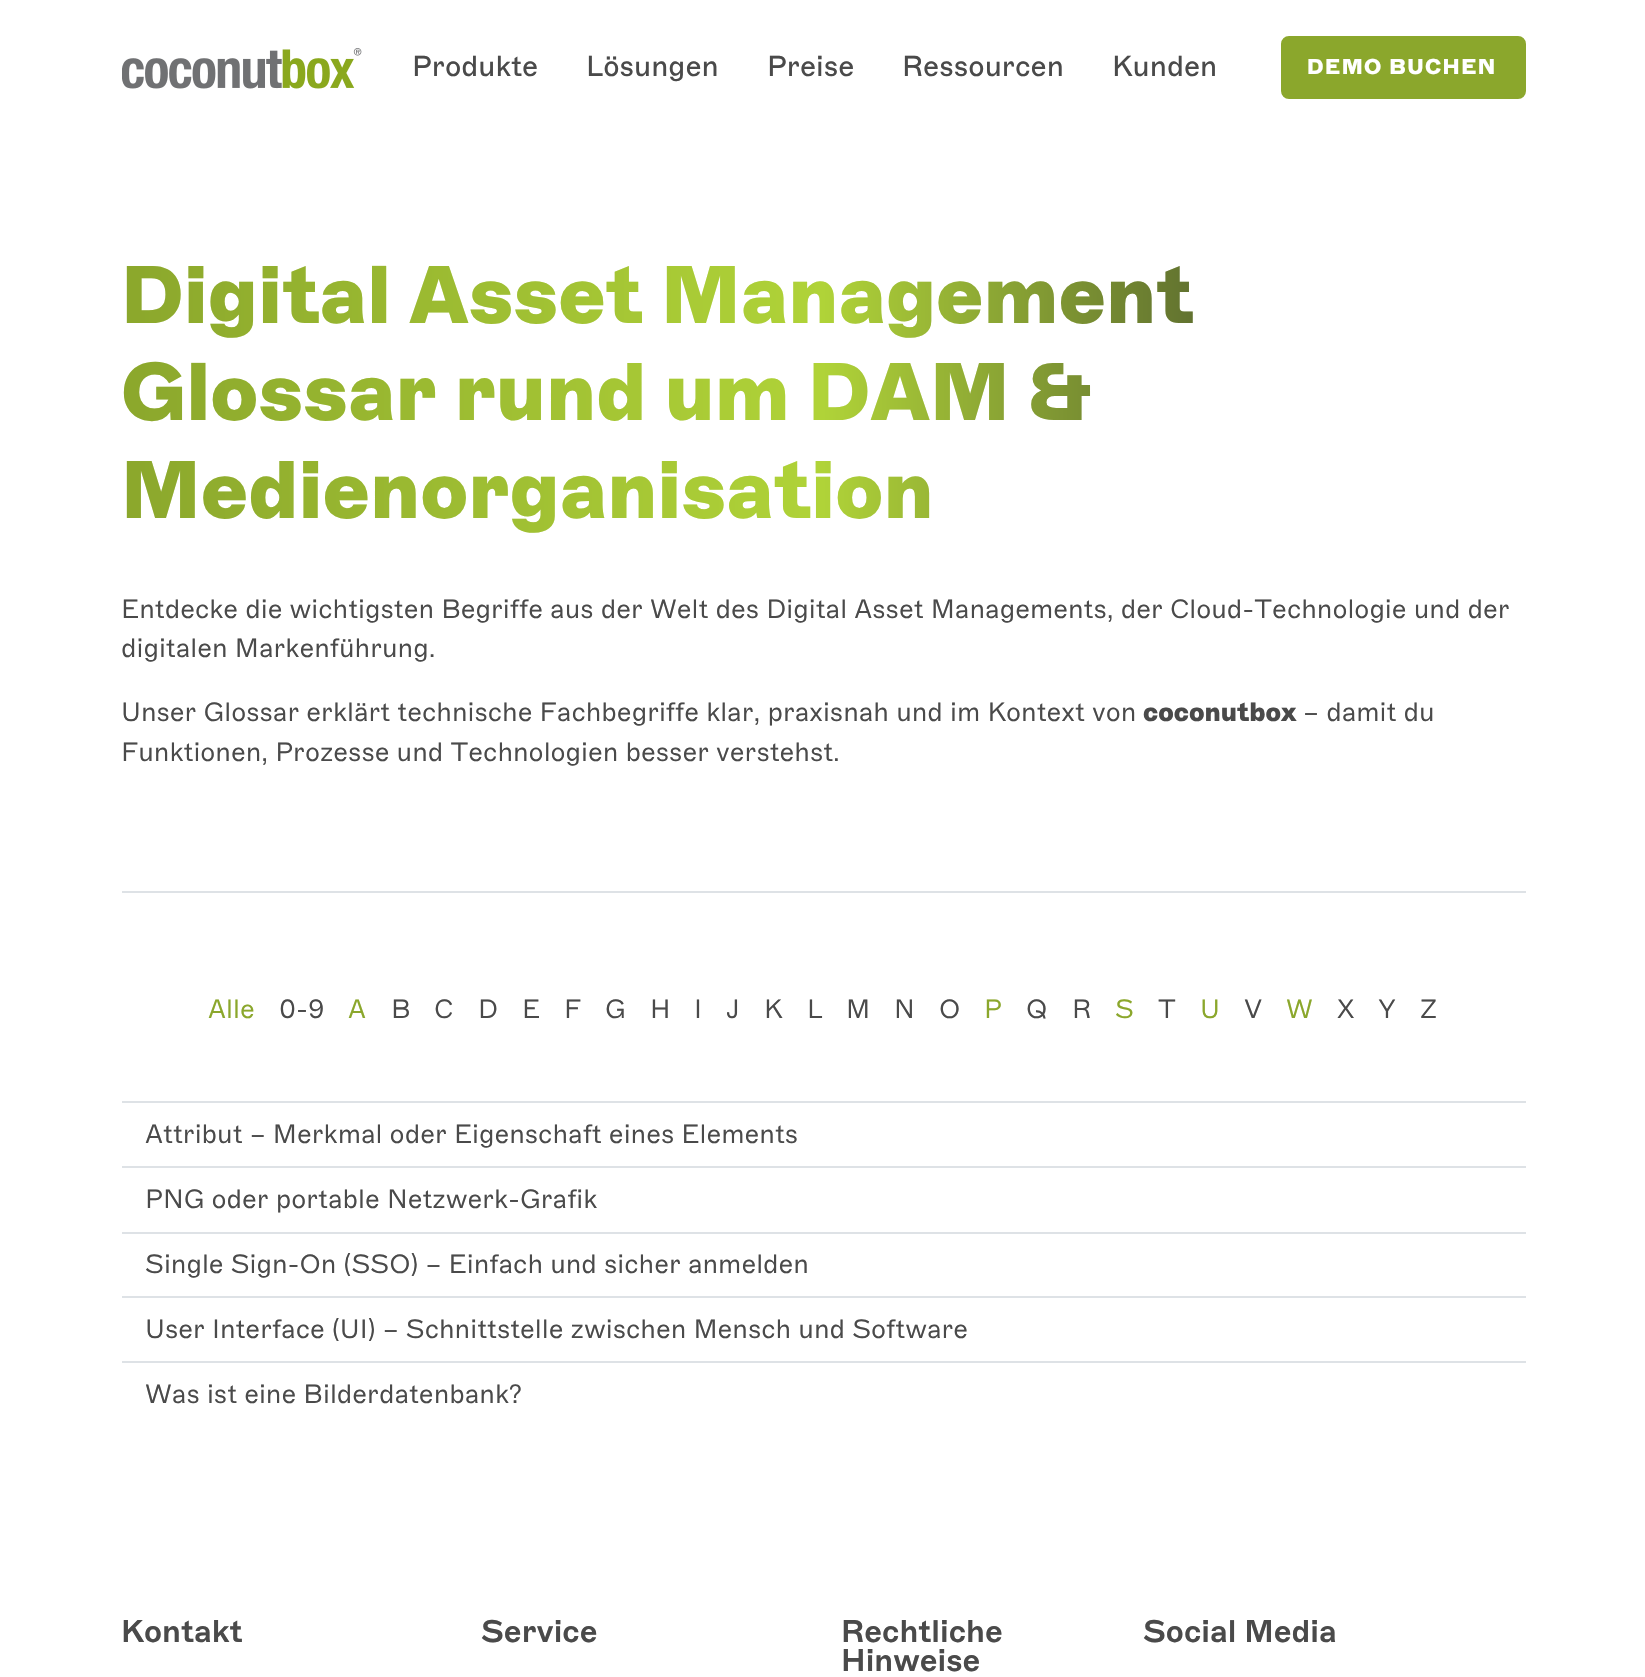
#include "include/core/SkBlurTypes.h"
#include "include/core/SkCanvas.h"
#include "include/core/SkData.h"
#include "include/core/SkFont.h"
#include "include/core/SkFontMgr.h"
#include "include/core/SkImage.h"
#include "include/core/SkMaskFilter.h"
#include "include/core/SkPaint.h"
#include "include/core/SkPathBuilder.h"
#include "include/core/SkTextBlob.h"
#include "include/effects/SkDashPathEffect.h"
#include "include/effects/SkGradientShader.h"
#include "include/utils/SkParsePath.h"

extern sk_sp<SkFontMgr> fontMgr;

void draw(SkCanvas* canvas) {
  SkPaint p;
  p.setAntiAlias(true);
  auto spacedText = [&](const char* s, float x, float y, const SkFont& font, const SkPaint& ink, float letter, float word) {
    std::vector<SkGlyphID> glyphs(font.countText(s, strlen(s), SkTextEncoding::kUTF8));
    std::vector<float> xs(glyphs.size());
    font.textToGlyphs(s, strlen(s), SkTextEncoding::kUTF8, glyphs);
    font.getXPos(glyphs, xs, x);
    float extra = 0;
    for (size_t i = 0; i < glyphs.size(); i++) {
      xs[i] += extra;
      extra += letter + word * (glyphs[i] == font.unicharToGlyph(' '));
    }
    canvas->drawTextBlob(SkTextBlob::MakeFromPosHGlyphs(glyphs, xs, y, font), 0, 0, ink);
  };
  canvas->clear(SK_ColorWHITE);
  canvas->drawImageRect(SkImages::DeferredFromEncodedData(SkData::MakeFromFileName("images/1.png")), SkRect::MakeLTRB(122, 48, 362, 89), SkSamplingOptions());
  p.setColor(SkColorSetRGB(139, 167, 44));
  canvas->drawRoundRect(SkRect::MakeLTRB(1282.5f, 37.5f, 1524.5f, 97.5f), 6.5f, 6.5f, p);
  p.setStyle(SkPaint::kStroke_Style);
  p.setStrokeWidth(3);
  canvas->drawRoundRect(SkRect::MakeLTRB(1282.5f, 37.5f, 1524.5f, 97.5f), 6.5f, 6.5f, p);
  p.setStyle(SkPaint::kFill_Style);
  p.setColor(SkColorSetRGB(222, 226, 230));
  canvas->drawRect(SkRect::MakeLTRB(122, 891, 1526, 893), p);
  canvas->drawRect(SkRect::MakeLTRB(122, 1101, 1526, 1103), p);
  canvas->drawRect(SkRect::MakeLTRB(122, 1166, 1526, 1168), p);
  canvas->drawRect(SkRect::MakeLTRB(122, 1232, 1526, 1234), p);
  canvas->drawRect(SkRect::MakeLTRB(122, 1296, 1526, 1298), p);
  canvas->drawRect(SkRect::MakeLTRB(122, 1361, 1526, 1363), p);
  SkFont font1(fontMgr->matchFamilyStyle("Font", SkFontStyle::Normal()), 28.75f);
  font1.setSubpixel(true);
  p.setColor(SkColorSetRGB(74, 74, 74));
  canvas->drawString("Produkte", 412, 76, font1, p);
  canvas->drawString("Lösungen", 586, 76, font1, p);
  canvas->drawString("Preise", 767, 76, font1, p);
  canvas->drawString("Ressourcen", 902, 76, font1, p);
  canvas->drawString("Kunden", 1112, 76, font1, p);
  SkFont font2(fontMgr->matchFamilyStyle("Font", SkFontStyle(900, SkFontStyle::kNormal_Width, SkFontStyle::kUpright_Slant)), 21.5f);
  font2.setSubpixel(true);
  p.setColor(SK_ColorWHITE);
  spacedText("DEMO BUCHEN", 1307, 74, font2, p, 1.5f, 0);
  SkFont font3(fontMgr->matchFamilyStyle("Font", SkFontStyle(900, SkFontStyle::kNormal_Width, SkFontStyle::kUpright_Slant)), 81.6f);
  font3.setSubpixel(true);
  {
    const SkColor colors[] = {SkColorSetRGB(139, 167, 44), SkColorSetRGB(176, 211, 56), SkColorSetRGB(28, 28, 40)};
    const float stops[] = {0, 0.5f, 1};
    const SkPoint ends[] = {{121, 418}, {1525, 418}};
    p.setShader(SkGradientShader::MakeLinear(ends, colors, stops, 3, SkTileMode::kClamp));
    p.setAlpha(255);
  }
  canvas->drawString("Digital Asset Management", 121, 323, font3, p);
  canvas->drawString("Glossar rund um DAM &", 121, 420, font3, p);
  canvas->drawString("Medienorganisation", 121, 518, font3, p);
  SkFont font4(fontMgr->matchFamilyStyle("Font", SkFontStyle(300, SkFontStyle::kNormal_Width, SkFontStyle::kUpright_Slant)), 26.4f);
  font4.setSubpixel(true);
  p.setShader(nullptr);
  p.setColor(SkColorSetRGB(74, 74, 74));
  canvas->drawString("Entdecke die wichtigsten Begriffe aus der Welt des Digital Asset Managements, der Cloud-Technologie und der", 121, 618, font4, p);
  canvas->drawString("digitalen Markenführung.", 121, 657, font4, p);
  canvas->drawString("Unser Glossar erklärt technische Fachbegriffe klar, praxisnah und im Kontext von", 121, 721, font4, p);
  SkFont font5(fontMgr->matchFamilyStyle("Font", SkFontStyle(900, SkFontStyle::kNormal_Width, SkFontStyle::kUpright_Slant)), 26.4f);
  font5.setSubpixel(true);
  canvas->drawString("coconutbox", 1143, 721, font5, p);
  canvas->drawString("– damit du", 1303, 721, font4, p);
  canvas->drawString("Funktionen, Prozesse und Technologien besser verstehst.", 121, 761, font4, p);
  p.setColor(SkColorSetRGB(139, 167, 44));
  canvas->drawString("Alle", 208, 1018, font4, p);
  p.setColor(SkColorSetRGB(74, 74, 74));
  canvas->drawString("0-9", 279, 1018, font4, p);
  p.setColor(SkColorSetRGB(139, 167, 44));
  canvas->drawString("A", 348, 1018, font4, p);
  p.setColor(SkColorSetRGB(74, 74, 74));
  canvas->drawString("B", 391, 1018, font4, p);
  canvas->drawString("C", 434, 1018, font4, p);
  canvas->drawString("D", 478, 1018, font4, p);
  canvas->drawString("E", 522, 1018, font4, p);
  canvas->drawString("F", 564, 1018, font4, p);
  canvas->drawString("G", 605, 1018, font4, p);
  canvas->drawString("H", 650, 1018, font4, p);
  canvas->drawString("I", 694, 1018, font4, p);
  canvas->drawString("J", 726, 1018, font4, p);
  canvas->drawString("K", 764, 1018, font4, p);
  canvas->drawString("L", 807, 1018, font4, p);
  canvas->drawString("M", 846, 1018, font4, p);
  canvas->drawString("N", 894, 1018, font4, p);
  canvas->drawString("O", 939, 1018, font4, p);
  p.setColor(SkColorSetRGB(139, 167, 44));
  canvas->drawString("P", 984, 1018, font4, p);
  p.setColor(SkColorSetRGB(74, 74, 74));
  canvas->drawString("Q", 1026, 1018, font4, p);
  canvas->drawString("R", 1072, 1018, font4, p);
  p.setColor(SkColorSetRGB(139, 167, 44));
  canvas->drawString("S", 1115, 1018, font4, p);
  p.setColor(SkColorSetRGB(74, 74, 74));
  canvas->drawString("T", 1158, 1018, font4, p);
  p.setColor(SkColorSetRGB(139, 167, 44));
  canvas->drawString("U", 1200, 1018, font4, p);
  p.setColor(SkColorSetRGB(74, 74, 74));
  canvas->drawString("V", 1244, 1018, font4, p);
  p.setColor(SkColorSetRGB(139, 167, 44));
  canvas->drawString("W", 1286, 1018, font4, p);
  p.setColor(SkColorSetRGB(74, 74, 74));
  canvas->drawString("X", 1337, 1018, font4, p);
  canvas->drawString("Y", 1378, 1018, font4, p);
  canvas->drawString("Z", 1420, 1018, font4, p);
  canvas->drawString("Attribut – Merkmal oder Eigenschaft eines Elements", 145, 1143, font4, p);
  canvas->drawString("PNG oder portable Netzwerk-Grafik", 145, 1208, font4, p);
  canvas->drawString("Single Sign-On (SSO) – Einfach und sicher anmelden", 145, 1273, font4, p);
  canvas->drawString("User Interface (UI) – Schnittstelle zwischen Mensch und Software", 145, 1338, font4, p);
  canvas->drawString("Was ist eine Bilderdatenbank?", 145, 1403, font4, p);
  SkFont font6(fontMgr->matchFamilyStyle("Font", SkFontStyle(600, SkFontStyle::kNormal_Width, SkFontStyle::kUpright_Slant)), 31.25f);
  font6.setSubpixel(true);
  canvas->drawString("Kontakt", 121, 1642, font6, p);
  canvas->drawString("Service", 481, 1642, font6, p);
  canvas->drawString("Rechtliche", 841, 1642, font6, p);
  canvas->drawString("Hinweise", 841, 1671, font6, p);
  canvas->drawString("Social Media", 1143, 1642, font6, p);
}
